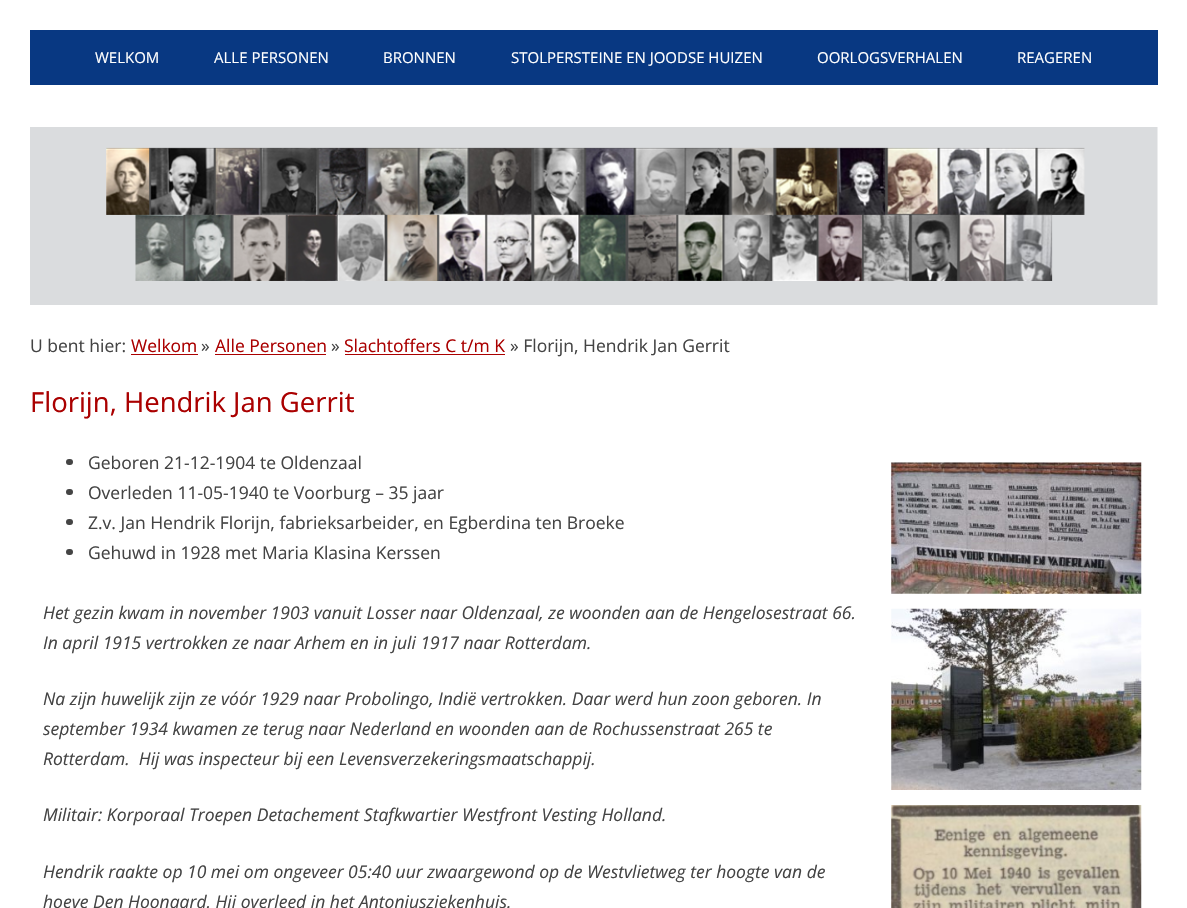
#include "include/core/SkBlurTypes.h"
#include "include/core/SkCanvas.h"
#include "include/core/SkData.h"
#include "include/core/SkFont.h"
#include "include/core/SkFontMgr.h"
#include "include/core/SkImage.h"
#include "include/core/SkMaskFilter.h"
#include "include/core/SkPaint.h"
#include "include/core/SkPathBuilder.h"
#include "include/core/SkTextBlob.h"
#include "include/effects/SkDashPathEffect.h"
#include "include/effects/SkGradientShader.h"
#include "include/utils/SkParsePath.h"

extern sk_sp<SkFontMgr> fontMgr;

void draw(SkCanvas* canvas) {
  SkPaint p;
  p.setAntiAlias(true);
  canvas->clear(SK_ColorWHITE);
  p.setColor(SkColorSetRGB(8, 56, 130));
  canvas->drawRect(SkRect::MakeLTRB(30, 30, 1158, 85), p);
  canvas->drawImageRect(SkImages::DeferredFromEncodedData(SkData::MakeFromFileName("images/1.png")), SkRect::MakeLTRB(30, 127, 1158, 305), SkSamplingOptions());
  p.setColor(SkColorSetRGB(170, 0, 0));
  canvas->drawRect(SkRect::MakeLTRB(131, 354, 198, 355), p);
  canvas->drawRect(SkRect::MakeLTRB(215, 354, 326, 355), p);
  canvas->drawRect(SkRect::MakeLTRB(345, 354, 505, 355), p);
  p.setColor(SkColorSetRGB(68, 68, 68));
  canvas->drawRoundRect(SkRect::MakeLTRB(66, 459, 73, 465), 3, 3, p);
  canvas->drawRoundRect(SkRect::MakeLTRB(66, 489, 73, 495), 3, 3, p);
  canvas->drawRoundRect(SkRect::MakeLTRB(66, 519, 73, 525), 3, 3, p);
  canvas->drawRoundRect(SkRect::MakeLTRB(66, 549, 73, 555), 3, 3, p);
  canvas->drawImageRect(SkImages::DeferredFromEncodedData(SkData::MakeFromFileName("images/2.png")), SkRect::MakeLTRB(891, 462, 1142, 594), SkSamplingOptions());
  canvas->drawImageRect(SkImages::DeferredFromEncodedData(SkData::MakeFromFileName("images/3.png")), SkRect::MakeLTRB(891, 608, 1142, 790), SkSamplingOptions());
  canvas->drawImageRect(SkImages::DeferredFromEncodedData(SkData::MakeFromFileName("images/4.png")), SkRect::MakeLTRB(891, 805, 1142, 908), SkSamplingOptions());
  SkFont font1(fontMgr->matchFamilyStyle("Open Sans", SkFontStyle::Normal()), 15);
  font1.setSubpixel(true);
  p.setColor(SK_ColorWHITE);
  canvas->drawString("WELKOM", 95, 63, font1, p);
  canvas->drawString("ALLE PERSONEN", 214, 63, font1, p);
  canvas->drawString("BRONNEN", 383, 63, font1, p);
  canvas->drawString("STOLPERSTEINE EN JOODSE HUIZEN", 511, 63, font1, p);
  canvas->drawString("OORLOGSVERHALEN", 817, 63, font1, p);
  canvas->drawString("REAGEREN", 1017, 63, font1, p);
  SkFont font2(fontMgr->matchFamilyStyle("Open Sans", SkFontStyle::Normal()), 17.5f);
  font2.setSubpixel(true);
  p.setColor(SkColorSetRGB(68, 68, 68));
  canvas->drawString("U bent hier:", 30, 352, font2, p);
  p.setColor(SkColorSetRGB(170, 0, 0));
  canvas->drawString("Welkom", 131, 352, font2, p);
  p.setColor(SkColorSetRGB(68, 68, 68));
  canvas->drawString("»", 201, 352, font2, p);
  p.setColor(SkColorSetRGB(170, 0, 0));
  canvas->drawString("Alle Personen", 215, 352, font2, p);
  p.setColor(SkColorSetRGB(68, 68, 68));
  canvas->drawString("»", 331, 352, font2, p);
  p.setColor(SkColorSetRGB(170, 0, 0));
  canvas->drawString("Slachtoffers C t/m K", 344, 352, font2, p);
  p.setColor(SkColorSetRGB(68, 68, 68));
  canvas->drawString("» Florijn, Hendrik Jan Gerrit", 510, 352, font2, p);
  SkFont font3(fontMgr->matchFamilyStyle("Open Sans", SkFontStyle::Normal()), 27.5f);
  font3.setSubpixel(true);
  p.setColor(SkColorSetRGB(170, 0, 0));
  canvas->drawString("Florijn, Hendrik Jan Gerrit", 30, 412, font3, p);
  p.setColor(SkColorSetRGB(68, 68, 68));
  canvas->drawString("Geboren 21-12-1904 te Oldenzaal", 88, 469, font2, p);
  canvas->drawString("Overleden 11-05-1940 te Voorburg – 35 jaar", 88, 499, font2, p);
  canvas->drawString("Z.v. Jan Hendrik Florijn, fabrieksarbeider, en Egberdina ten Broeke", 88, 529, font2, p);
  canvas->drawString("Gehuwd in 1928 met Maria Klasina Kerssen", 88, 559, font2, p);
  SkFont font4(fontMgr->matchFamilyStyle("Open Sans", SkFontStyle::Italic()), 17.5f);
  font4.setSubpixel(true);
  canvas->drawString("Het gezin kwam in november 1903 vanuit Losser naar Oldenzaal, ze woonden aan de Hengelosestraat 66.", 43, 619, font4, p);
  canvas->drawString("In april 1915 vertrokken ze naar Arhem en in juli 1917 naar Rotterdam.", 43, 649, font4, p);
  canvas->drawString("Na zijn huwelijk zijn ze vóór 1929 naar Probolingo, Indië vertrokken. Daar werd hun zoon geboren. In", 43, 705, font4, p);
  canvas->drawString("september 1934 kwamen ze terug naar Nederland en woonden aan de Rochussenstraat 265 te", 43, 735, font4, p);
  canvas->drawString("Rotterdam.  Hij was inspecteur bij een Levensverzekeringsmaatschappij.", 43, 765, font4, p);
  canvas->drawString("Militair: Korporaal Troepen Detachement Stafkwartier Westfront Vesting Holland.", 43, 821, font4, p);
  canvas->drawString("Hendrik raakte op 10 mei om ongeveer 05:40 uur zwaargewond op de Westvlietweg ter hoogte van de", 43, 878, font4, p);
  canvas->drawString("hoeve Den Hoonaard. Hij overleed in het Antoniusziekenhuis.", 43, 908, font4, p);
}
